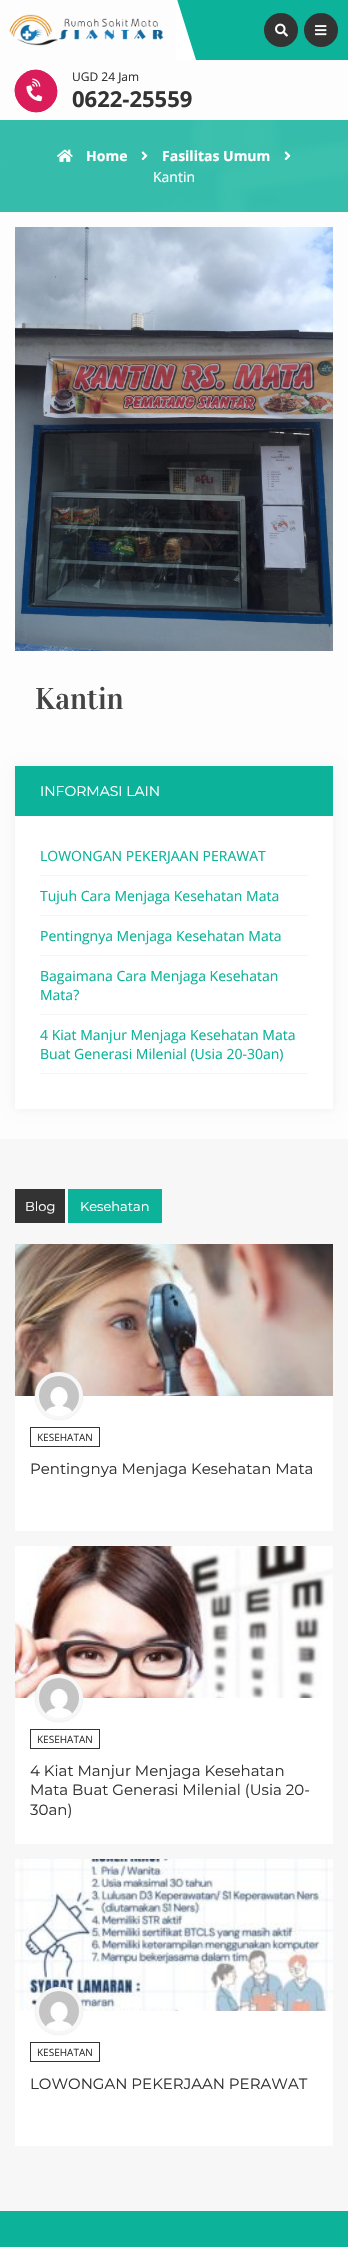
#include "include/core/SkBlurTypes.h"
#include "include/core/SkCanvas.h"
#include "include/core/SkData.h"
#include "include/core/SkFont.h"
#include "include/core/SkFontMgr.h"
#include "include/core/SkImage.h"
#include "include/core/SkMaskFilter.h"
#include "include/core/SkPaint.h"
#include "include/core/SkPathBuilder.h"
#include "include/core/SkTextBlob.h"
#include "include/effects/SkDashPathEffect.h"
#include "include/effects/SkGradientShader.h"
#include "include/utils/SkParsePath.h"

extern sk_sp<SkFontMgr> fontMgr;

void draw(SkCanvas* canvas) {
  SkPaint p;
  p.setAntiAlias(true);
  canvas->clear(SkColorSetRGB(253, 253, 253));
  p.setColor(SkColorSetRGB(12, 178, 153));
  canvas->drawRect(SkRect::MakeLTRB(177, 0, 348, 60), p);
  canvas->drawImageRect(SkImages::DeferredFromEncodedData(SkData::MakeFromFileName("images/1.png")), SkRect::MakeLTRB(9, 14, 164, 46), SkSamplingOptions());
  p.setColor(SK_ColorWHITE);
  canvas->drawPath(SkPathBuilder().moveTo(196, 60).lineTo(176, 60).lineTo(176, -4).close().detach(), p);
  p.setColor(SkColorSetRGB(51, 51, 51));
  canvas->drawCircle(281, 30, 16, p);
  p.setStyle(SkPaint::kStroke_Style);
  p.setStrokeWidth(2);
  canvas->drawCircle(281, 30, 16, p);
  canvas->drawImageRect(SkImages::DeferredFromEncodedData(SkData::MakeFromFileName("images/2.png")), SkRect::MakeLTRB(275, 23, 288, 37), SkSamplingOptions());
  p.setStyle(SkPaint::kFill_Style);
  canvas->drawCircle(321, 30, 16, p);
  p.setStyle(SkPaint::kStroke_Style);
  canvas->drawCircle(321, 30, 16, p);
  canvas->drawImageRect(SkImages::DeferredFromEncodedData(SkData::MakeFromFileName("images/3.png")), SkRect::MakeLTRB(315, 25, 327, 36), SkSamplingOptions());
  p.setStyle(SkPaint::kFill_Style);
  p.setColor(SkColorSetRGB(219, 28, 91));
  canvas->drawPath(SkPathBuilder().moveTo(21, 76).cubicTo(41, 57, 70, 86, 51, 106).cubicTo(31, 125, 2, 96, 21, 76).close().detach(), p);
  p.setStyle(SkPaint::kStroke_Style);
  p.setStrokeWidth(3);
  canvas->drawPath(SkPathBuilder().moveTo(22, 77).cubicTo(40.5f, 59, 68, 86.5f, 50, 105).cubicTo(31.5f, 123, 4, 95.5f, 22, 77).close().detach(), p);
  canvas->drawImageRect(SkImages::DeferredFromEncodedData(SkData::MakeFromFileName("images/4.png")), SkRect::MakeLTRB(26, 78, 43, 102), SkSamplingOptions());
  canvas->drawImageRect(SkImages::DeferredFromEncodedData(SkData::MakeFromFileName("images/5.png")), SkRect::MakeLTRB(0, 120, 348, 212), SkSamplingOptions());
  canvas->drawImageRect(SkImages::DeferredFromEncodedData(SkData::MakeFromFileName("images/6.png")), SkRect::MakeLTRB(57, 149, 73, 162), SkSamplingOptions());
  canvas->drawImageRect(SkImages::DeferredFromEncodedData(SkData::MakeFromFileName("images/7.png")), SkRect::MakeLTRB(141, 151, 148, 161), SkSamplingOptions());
  canvas->drawImageRect(SkImages::DeferredFromEncodedData(SkData::MakeFromFileName("images/8.png")), SkRect::MakeLTRB(284, 151, 291, 161), SkSamplingOptions());
  canvas->drawImageRect(SkImages::DeferredFromEncodedData(SkData::MakeFromFileName("images/9.png")), SkRect::MakeLTRB(15, 227, 333, 651), SkSamplingOptions());
  p.setStyle(SkPaint::kFill_Style);
  p.setColor(SkColorSetRGB(238, 238, 238));
  p.setMaskFilter(SkMaskFilter::MakeBlur(kNormal_SkBlurStyle, 5));
  canvas->drawRect(SkRect::MakeLTRB(15, 766, 333, 1109), p);
  p.setMaskFilter(nullptr);
  p.setColor(SK_ColorWHITE);
  canvas->drawRect(SkRect::MakeLTRB(15, 816, 333, 1109), p);
  p.setColor(SkColorSetRGB(12, 178, 153));
  canvas->drawRect(SkRect::MakeLTRB(15, 766, 333, 816), p);
  p.setColor(SkColorSetRGB(245, 245, 245));
  canvas->drawRect(SkRect::MakeLTRB(40, 875, 308, 876), p);
  canvas->drawRect(SkRect::MakeLTRB(40, 915, 308, 916), p);
  canvas->drawRect(SkRect::MakeLTRB(40, 955, 308, 956), p);
  canvas->drawRect(SkRect::MakeLTRB(40, 1014, 308, 1015), p);
  canvas->drawRect(SkRect::MakeLTRB(40, 1073, 308, 1074), p);
  p.setColor(SkColorSetRGB(247, 247, 247));
  canvas->drawRect(SkRect::MakeLTRB(0, 1139, 348, 2211), p);
  p.setColor(SkColorSetRGB(51, 51, 51));
  canvas->drawRect(SkRect::MakeLTRB(15, 1189, 65, 1223), p);
  p.setColor(SkColorSetRGB(12, 178, 153));
  canvas->drawRect(SkRect::MakeLTRB(68, 1189, 162, 1223), p);
  canvas->drawImageRect(SkImages::DeferredFromEncodedData(SkData::MakeFromFileName("images/10.png")), SkRect::MakeLTRB(15, 1244, 333, 1396), SkSamplingOptions());
  p.setColor(SK_ColorWHITE);
  canvas->drawRect(SkRect::MakeLTRB(15, 1396, 333, 1531), p);
  p.setColor(SkColorSetRGB(221, 221, 221));
  p.setMaskFilter(SkMaskFilter::MakeBlur(kNormal_SkBlurStyle, 0.5f));
  canvas->drawRoundRect(SkRect::MakeLTRB(35, 1372, 83, 1420), 24, 24, p);
  p.setMaskFilter(nullptr);
  p.setColor(SkColorSetRGB(247, 247, 247));
  canvas->drawCircle(59, 1396, 22, p);
  p.setStyle(SkPaint::kStroke_Style);
  p.setStrokeWidth(4);
  canvas->drawCircle(59, 1396, 22, p);
  canvas->drawImageRect(SkImages::DeferredFromEncodedData(SkData::MakeFromFileName("images/11.png")), SkRect::MakeLTRB(39, 1376, 79, 1416), SkSamplingOptions());
  p.setStrokeWidth(1);
  p.setColor(SkColorSetRGB(51, 51, 51));
  canvas->drawRect(SkRect::MakeLTRB(30.5f, 1427.5f, 99.5f, 1446.5f), p);
  canvas->drawImageRect(SkImages::DeferredFromEncodedData(SkData::MakeFromFileName("images/12.png")), SkRect::MakeLTRB(15, 1546, 333, 1698), SkSamplingOptions());
  p.setStyle(SkPaint::kFill_Style);
  p.setColor(SK_ColorWHITE);
  canvas->drawRect(SkRect::MakeLTRB(15, 1698, 333, 1844), p);
  p.setColor(SkColorSetRGB(221, 221, 221));
  p.setMaskFilter(SkMaskFilter::MakeBlur(kNormal_SkBlurStyle, 0.5f));
  canvas->drawRoundRect(SkRect::MakeLTRB(35, 1674, 83, 1722), 24, 24, p);
  p.setMaskFilter(nullptr);
  p.setColor(SkColorSetRGB(247, 247, 247));
  canvas->drawCircle(59, 1698, 22, p);
  p.setStyle(SkPaint::kStroke_Style);
  p.setStrokeWidth(4);
  canvas->drawCircle(59, 1698, 22, p);
  canvas->drawImageRect(SkImages::DeferredFromEncodedData(SkData::MakeFromFileName("images/13.png")), SkRect::MakeLTRB(39, 1678, 79, 1718), SkSamplingOptions());
  p.setStrokeWidth(1);
  p.setColor(SkColorSetRGB(51, 51, 51));
  canvas->drawRect(SkRect::MakeLTRB(30.5f, 1729.5f, 99.5f, 1748.5f), p);
  canvas->drawImageRect(SkImages::DeferredFromEncodedData(SkData::MakeFromFileName("images/14.png")), SkRect::MakeLTRB(15, 1859, 333, 2011), SkSamplingOptions());
  p.setStyle(SkPaint::kFill_Style);
  p.setColor(SK_ColorWHITE);
  canvas->drawRect(SkRect::MakeLTRB(15, 2011, 333, 2146), p);
  p.setColor(SkColorSetRGB(221, 221, 221));
  p.setMaskFilter(SkMaskFilter::MakeBlur(kNormal_SkBlurStyle, 0.5f));
  canvas->drawRoundRect(SkRect::MakeLTRB(35, 1987, 83, 2035), 24, 24, p);
  p.setMaskFilter(nullptr);
  p.setColor(SkColorSetRGB(247, 247, 247));
  canvas->drawCircle(59, 2011, 22, p);
  p.setStyle(SkPaint::kStroke_Style);
  p.setStrokeWidth(4);
  canvas->drawCircle(59, 2011, 22, p);
  canvas->drawImageRect(SkImages::DeferredFromEncodedData(SkData::MakeFromFileName("images/15.png")), SkRect::MakeLTRB(39, 1991, 79, 2031), SkSamplingOptions());
  p.setStrokeWidth(1);
  p.setColor(SkColorSetRGB(51, 51, 51));
  canvas->drawRect(SkRect::MakeLTRB(30.5f, 2042.5f, 99.5f, 2061.5f), p);
  p.setStyle(SkPaint::kFill_Style);
  p.setColor(SkColorSetRGB(12, 178, 153));
  canvas->drawRect(SkRect::MakeLTRB(0, 2211, 348, 2247), p);
  SkFont font1(fontMgr->matchFamilyStyle("Open Sans", SkFontStyle::Normal()), 12);
  font1.setSubpixel(true);
  p.setColor(SkColorSetRGB(51, 51, 51));
  canvas->drawString("UGD 24 Jam", 72, 81, font1, p);
  SkFont font2(fontMgr->matchFamilyStyle("Open Sans", SkFontStyle::Bold()), 22);
  font2.setSubpixel(true);
  canvas->drawString("0622-25559", 72, 107, font2, p);
  SkFont font3(fontMgr->matchFamilyStyle("Open Sans", SkFontStyle::Bold()), 14);
  font3.setSubpixel(true);
  p.setColor(SK_ColorWHITE);
  canvas->drawString("Home", 86, 161, font3, p);
  canvas->drawString("Fasilitas Umum", 162, 161, font3, p);
  SkFont font4(fontMgr->matchFamilyStyle("Open Sans", SkFontStyle::Normal()), 14);
  font4.setSubpixel(true);
  canvas->drawString("Kantin", 153, 182, font4, p);
  SkFont font5(fontMgr->matchFamilyStyle("Vidaloka", SkFontStyle::Normal()), 30);
  font5.setSubpixel(true);
  p.setColor(SkColorSetRGB(68, 68, 68));
  canvas->drawString("Kantin", 35, 709, font5, p);
  SkFont font6(fontMgr->matchFamilyStyle("Montserrat", SkFontStyle(100, SkFontStyle::kNormal_Width, SkFontStyle::kUpright_Slant)), 14);
  font6.setSubpixel(true);
  p.setColor(SK_ColorWHITE);
  canvas->drawString("INFORMASI LAIN", 40, 796, font6, p);
  p.setColor(SkColorSetRGB(12, 178, 153));
  canvas->drawString("LOWONGAN PEKERJAAN PERAWAT", 40, 861, font4, p);
  canvas->drawString("Tujuh Cara Menjaga Kesehatan Mata", 40, 901, font4, p);
  canvas->drawString("Pentingnya Menjaga Kesehatan Mata", 40, 941, font4, p);
  canvas->drawString("Bagaimana Cara Menjaga Kesehatan", 40, 981, font4, p);
  canvas->drawString("Mata?", 40, 1000, font4, p);
  canvas->drawString("4 Kiat Manjur Menjaga Kesehatan Mata", 40, 1040, font4, p);
  canvas->drawString("Buat Generasi Milenial (Usia 20-30an)", 40, 1059, font4, p);
  SkFont font7(fontMgr->matchFamilyStyle("Montserrat", SkFontStyle(100, SkFontStyle::kNormal_Width, SkFontStyle::kUpright_Slant)), 13);
  font7.setSubpixel(true);
  p.setColor(SK_ColorWHITE);
  canvas->drawString("Blog", 25, 1211, font7, p);
  canvas->drawString("Kesehatan", 80, 1211, font7, p);
  SkFont font8(fontMgr->matchFamilyStyle("Open Sans", SkFontStyle::Normal()), 10);
  font8.setSubpixel(true);
  p.setColor(SkColorSetRGB(51, 51, 51));
  canvas->drawString("KESEHATAN", 37, 1441, font8, p);
  SkFont font9(fontMgr->matchFamilyStyle("Montserrat", SkFontStyle(100, SkFontStyle::kNormal_Width, SkFontStyle::kUpright_Slant)), 15);
  font9.setSubpixel(true);
  canvas->drawString("Pentingnya Menjaga Kesehatan Mata", 30, 1474, font9, p);
  canvas->drawString("KESEHATAN", 37, 1743, font8, p);
  canvas->drawString("4 Kiat Manjur Menjaga Kesehatan", 30, 1776, font9, p);
  canvas->drawString("Mata Buat Generasi Milenial (Usia 20-", 30, 1795, font9, p);
  canvas->drawString("30an)", 30, 1815, font9, p);
  canvas->drawString("KESEHATAN", 37, 2056, font8, p);
  canvas->drawString("LOWONGAN PEKERJAAN PERAWAT", 30, 2089, font9, p);
}
